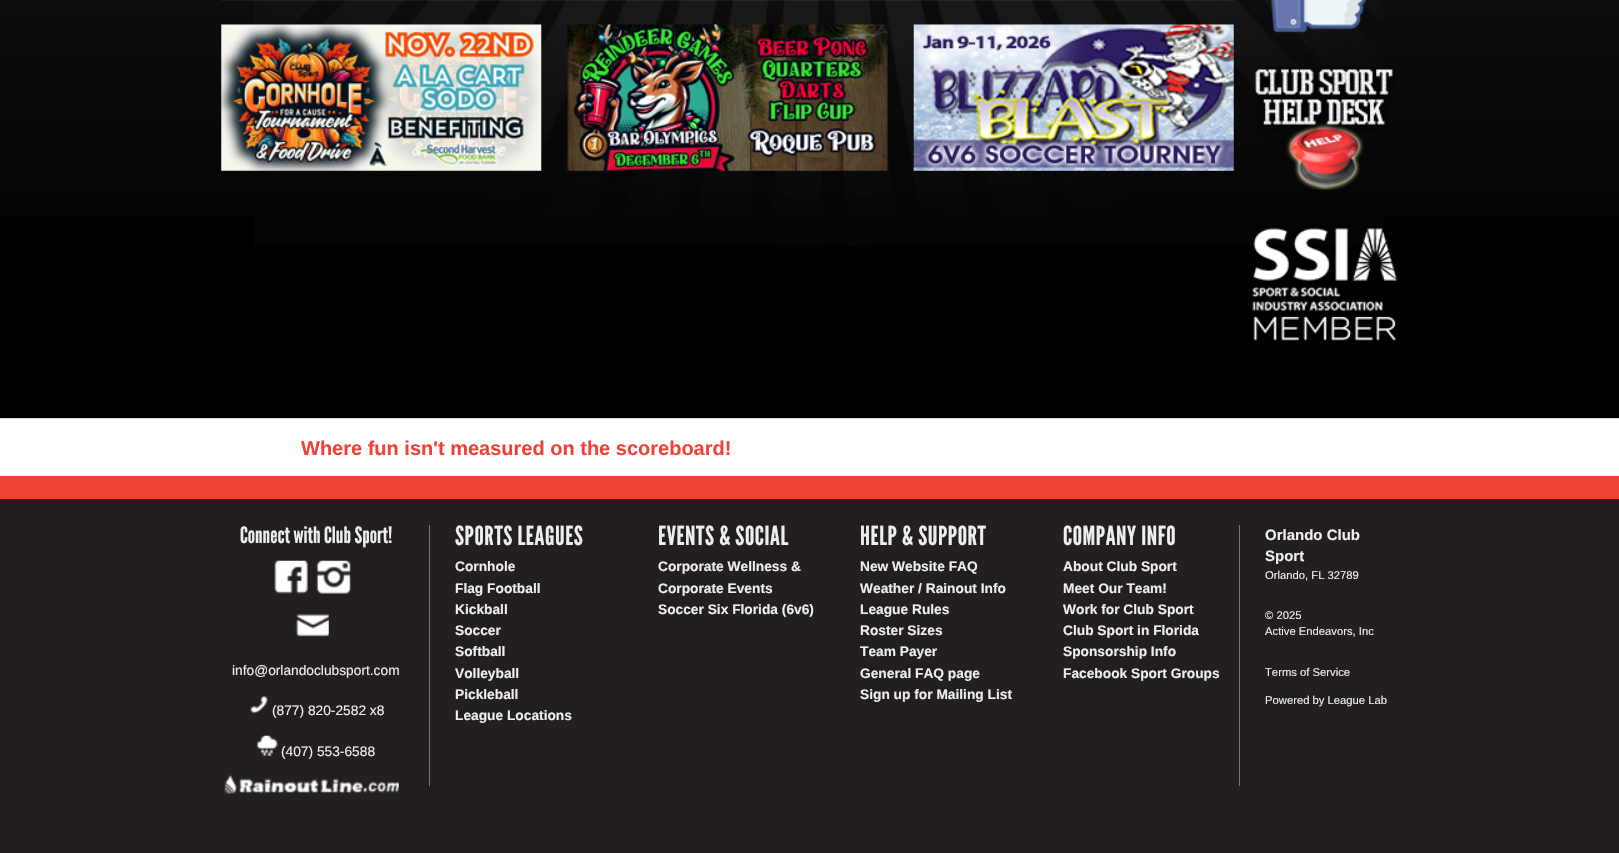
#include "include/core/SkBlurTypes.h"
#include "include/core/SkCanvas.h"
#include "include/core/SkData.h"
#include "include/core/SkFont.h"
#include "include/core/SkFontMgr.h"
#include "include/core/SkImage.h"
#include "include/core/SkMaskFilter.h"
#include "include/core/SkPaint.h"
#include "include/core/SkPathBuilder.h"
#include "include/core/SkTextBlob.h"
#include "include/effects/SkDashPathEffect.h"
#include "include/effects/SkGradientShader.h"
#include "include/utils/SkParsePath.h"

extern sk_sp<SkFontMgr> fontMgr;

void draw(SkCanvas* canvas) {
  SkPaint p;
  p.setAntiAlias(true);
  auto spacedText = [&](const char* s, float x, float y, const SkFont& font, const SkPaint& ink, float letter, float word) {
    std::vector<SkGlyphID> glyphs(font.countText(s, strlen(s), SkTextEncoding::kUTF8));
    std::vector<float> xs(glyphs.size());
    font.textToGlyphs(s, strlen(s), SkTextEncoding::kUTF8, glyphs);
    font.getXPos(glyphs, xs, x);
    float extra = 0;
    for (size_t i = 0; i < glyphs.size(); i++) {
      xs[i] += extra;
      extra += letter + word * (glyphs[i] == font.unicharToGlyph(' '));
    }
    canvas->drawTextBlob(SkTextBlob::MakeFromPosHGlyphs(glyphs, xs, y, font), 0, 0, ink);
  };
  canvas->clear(SK_ColorBLACK);
  canvas->drawImageRect(SkImages::DeferredFromEncodedData(SkData::MakeFromFileName("images/1.png")), SkRect::MakeLTRB(0, 0, 1619, 216), SkSamplingOptions());
  canvas->drawImageRect(SkImages::DeferredFromEncodedData(SkData::MakeFromFileName("images/2.png")), SkRect::MakeLTRB(254, 0, 1383, 246), SkSamplingOptions());
  p.setColor(SkColorSetRGB(153, 153, 153));
  p.setMaskFilter(SkMaskFilter::MakeBlur(kNormal_SkBlurStyle, 0.5f));
  canvas->drawRoundRect(SkRect::MakeLTRB(218, -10, 1238, 0), 8, 8, p);
  p.setMaskFilter(nullptr);
  canvas->drawImageRect(SkImages::DeferredFromEncodedData(SkData::MakeFromFileName("images/3.png")), SkRect::MakeLTRB(221, 24, 542, 171), SkSamplingOptions());
  canvas->drawImageRect(SkImages::DeferredFromEncodedData(SkData::MakeFromFileName("images/4.png")), SkRect::MakeLTRB(567, 24, 888, 171), SkSamplingOptions());
  canvas->drawImageRect(SkImages::DeferredFromEncodedData(SkData::MakeFromFileName("images/5.png")), SkRect::MakeLTRB(913, 24, 1234, 171), SkSamplingOptions());
  canvas->drawImageRect(SkImages::DeferredFromEncodedData(SkData::MakeFromFileName("images/6.png")), SkRect::MakeLTRB(1270, 0, 1367, 33), SkSamplingOptions());
  canvas->drawImageRect(SkImages::DeferredFromEncodedData(SkData::MakeFromFileName("images/7.png")), SkRect::MakeLTRB(1255, 67, 1395, 190), SkSamplingOptions());
  canvas->drawImageRect(SkImages::DeferredFromEncodedData(SkData::MakeFromFileName("images/8.png")), SkRect::MakeLTRB(1252, 228, 1398, 341), SkSamplingOptions());
  p.setColor(SK_ColorWHITE);
  canvas->drawRect(SkRect::MakeLTRB(0, 419, 1619, 476), p);
  p.setColor(SkColorSetRGB(221, 221, 221));
  canvas->drawRect(SkRect::MakeLTRB(0, 418, 1619, 419), p);
  p.setColor(SkColorSetRGB(239, 65, 54));
  canvas->drawRect(SkRect::MakeLTRB(0, 476, 1619, 499), p);
  p.setColor(SkColorSetRGB(35, 31, 32));
  canvas->drawRect(SkRect::MakeLTRB(0, 499, 1619, 853), p);
  canvas->drawImageRect(SkImages::DeferredFromEncodedData(SkData::MakeFromFileName("images/9.png")), SkRect::MakeLTRB(274, 560, 308, 594), SkSamplingOptions());
  canvas->drawImageRect(SkImages::DeferredFromEncodedData(SkData::MakeFromFileName("images/10.png")), SkRect::MakeLTRB(316, 560, 351, 594), SkSamplingOptions());
  canvas->drawImageRect(SkImages::DeferredFromEncodedData(SkData::MakeFromFileName("images/11.png")), SkRect::MakeLTRB(295, 613, 329, 637), SkSamplingOptions());
  canvas->drawImageRect(SkImages::DeferredFromEncodedData(SkData::MakeFromFileName("images/12.png")), SkRect::MakeLTRB(250, 695, 268, 714), SkSamplingOptions());
  canvas->drawImageRect(SkImages::DeferredFromEncodedData(SkData::MakeFromFileName("images/13.png")), SkRect::MakeLTRB(256, 735, 278, 756), SkSamplingOptions());
  canvas->drawImageRect(SkImages::DeferredFromEncodedData(SkData::MakeFromFileName("images/14.png")), SkRect::MakeLTRB(224, 775, 399, 794), SkSamplingOptions());
  p.setColor(SkColorSetRGB(119, 119, 119));
  canvas->drawRect(SkRect::MakeLTRB(1239, 525, 1240, 786), p);
  canvas->drawRect(SkRect::MakeLTRB(429, 525, 430, 786), p);
  SkFont font1(fontMgr->matchFamilyStyle("Liberation Sans", SkFontStyle::Bold()), 20);
  font1.setSubpixel(true);
  p.setColor(SkColorSetRGB(239, 65, 54));
  canvas->drawString("Where fun isn't measured on the scoreboard!", 301, 455, font1, p);
  SkFont font2(fontMgr->matchFamilyStyle("League Gothic", SkFontStyle::Normal()), 22.5f);
  font2.setSubpixel(true);
  p.setColor(SkColorSetRGB(238, 238, 238));
  canvas->drawString("Connect with Club Sport!", 240, 543, font2, p);
  SkFont font3(fontMgr->matchFamilyStyle("Liberation Sans", SkFontStyle::Normal()), 13.75f);
  font3.setSubpixel(true);
  canvas->drawString("info@orlandoclubsport.com", 232, 675, font3, p);
  canvas->drawString("(877) 820-2582 x8", 272, 715, font3, p);
  canvas->drawString("(407) 553-6588", 281, 756, font3, p);
  SkFont font4(fontMgr->matchFamilyStyle("League Gothic", SkFontStyle::Normal()), 26.25f);
  font4.setSubpixel(true);
  spacedText("SPORTS LEAGUES", 455, 545, font4, p, 0.6f, 0);
  SkFont font5(fontMgr->matchFamilyStyle("Liberation Sans", SkFontStyle::Bold()), 13.75f);
  font5.setSubpixel(true);
  canvas->drawString("Cornhole", 455, 571, font5, p);
  canvas->drawString("Flag Football", 455, 593, font5, p);
  canvas->drawString("Kickball", 455, 614, font5, p);
  canvas->drawString("Soccer", 455, 635, font5, p);
  canvas->drawString("Softball", 455, 656, font5, p);
  canvas->drawString("Volleyball", 455, 678, font5, p);
  canvas->drawString("Pickleball", 455, 699, font5, p);
  canvas->drawString("League Locations", 455, 720, font5, p);
  spacedText("EVENTS & SOCIAL", 658, 545, font4, p, 0.6f, 0);
  canvas->drawString("Corporate Wellness &", 658, 571, font5, p);
  canvas->drawString("Corporate Events", 658, 593, font5, p);
  canvas->drawString("Soccer Six Florida (6v6)", 658, 614, font5, p);
  spacedText("HELP & SUPPORT", 860, 545, font4, p, 0.6f, 0);
  canvas->drawString("New Website FAQ", 860, 571, font5, p);
  canvas->drawString("Weather / Rainout Info", 860, 593, font5, p);
  canvas->drawString("League Rules", 860, 614, font5, p);
  canvas->drawString("Roster Sizes", 860, 635, font5, p);
  canvas->drawString("Team Payer", 860, 656, font5, p);
  canvas->drawString("General FAQ page", 860, 678, font5, p);
  canvas->drawString("Sign up for Mailing List", 860, 699, font5, p);
  spacedText("COMPANY INFO", 1063, 545, font4, p, 0.6f, 0);
  canvas->drawString("About Club Sport", 1063, 571, font5, p);
  canvas->drawString("Meet Our Team!", 1063, 593, font5, p);
  canvas->drawString("Work for Club Sport", 1063, 614, font5, p);
  canvas->drawString("Club Sport in Florida", 1063, 635, font5, p);
  canvas->drawString("Sponsorship Info", 1063, 656, font5, p);
  canvas->drawString("Facebook Sport Groups", 1063, 678, font5, p);
  SkFont font6(fontMgr->matchFamilyStyle("Liberation Sans", SkFontStyle::Bold()), 15);
  font6.setSubpixel(true);
  canvas->drawString("Orlando Club", 1265, 540, font6, p);
  canvas->drawString("Sport", 1265, 561, font6, p);
  SkFont font7(fontMgr->matchFamilyStyle("Liberation Sans", SkFontStyle::Normal()), 11.25f);
  font7.setSubpixel(true);
  canvas->drawString("Orlando, FL 32789", 1265, 579, font7, p);
  canvas->drawString("© 2025", 1265, 619, font7, p);
  canvas->drawString("Active Endeavors, Inc", 1265, 635, font7, p);
  canvas->drawString("Terms of Service", 1265, 676, font7, p);
  canvas->drawString("Powered by League Lab", 1265, 704, font7, p);
}
